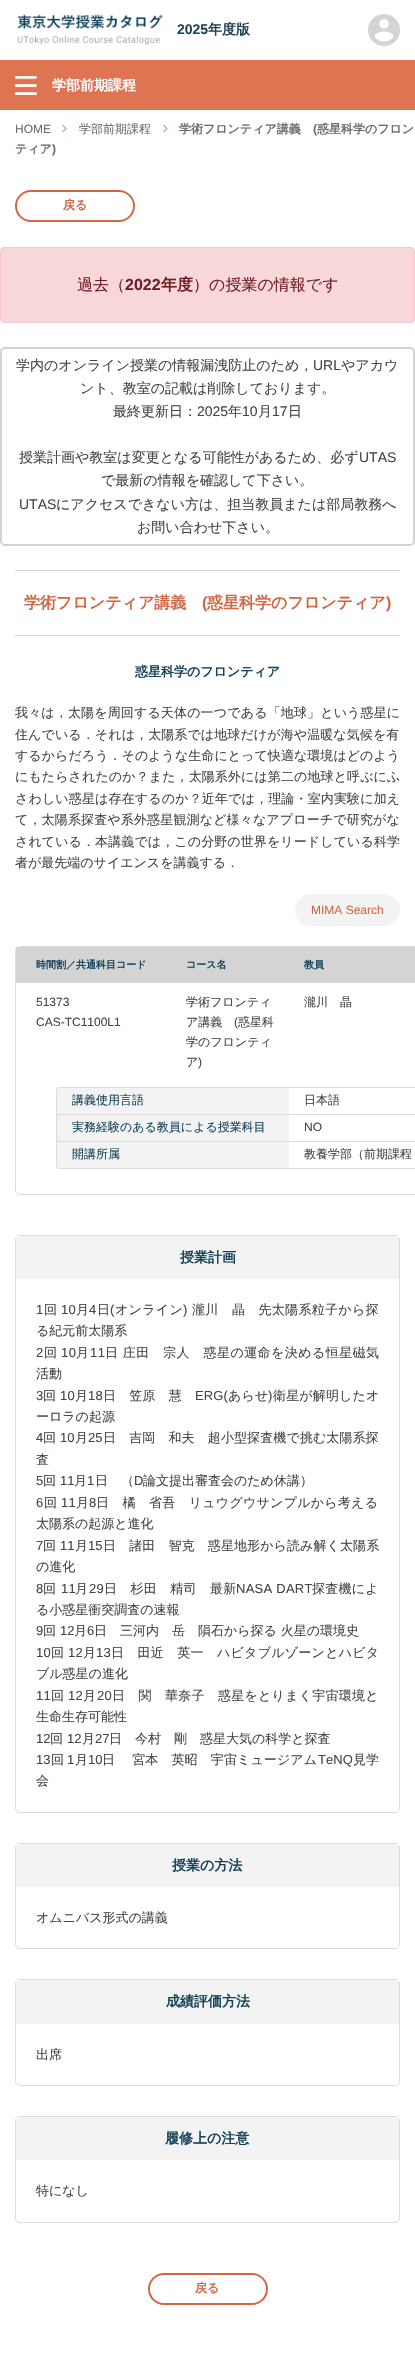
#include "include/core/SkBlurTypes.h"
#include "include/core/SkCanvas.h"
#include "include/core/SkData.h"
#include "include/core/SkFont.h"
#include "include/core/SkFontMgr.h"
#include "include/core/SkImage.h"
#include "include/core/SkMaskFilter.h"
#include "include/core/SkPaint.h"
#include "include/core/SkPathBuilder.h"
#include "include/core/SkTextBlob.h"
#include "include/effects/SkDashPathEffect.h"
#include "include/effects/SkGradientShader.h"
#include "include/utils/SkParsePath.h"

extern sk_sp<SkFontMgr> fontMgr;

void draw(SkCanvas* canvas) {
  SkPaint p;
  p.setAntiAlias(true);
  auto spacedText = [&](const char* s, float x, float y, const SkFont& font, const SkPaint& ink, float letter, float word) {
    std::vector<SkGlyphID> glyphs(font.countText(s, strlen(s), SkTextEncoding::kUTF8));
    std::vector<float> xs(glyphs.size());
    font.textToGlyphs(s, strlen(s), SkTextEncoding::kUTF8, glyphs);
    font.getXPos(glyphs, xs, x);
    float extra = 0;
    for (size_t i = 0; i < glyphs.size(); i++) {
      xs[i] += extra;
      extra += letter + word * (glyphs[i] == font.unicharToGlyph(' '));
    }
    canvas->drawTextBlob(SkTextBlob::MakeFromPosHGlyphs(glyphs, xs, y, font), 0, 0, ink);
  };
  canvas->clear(SK_ColorWHITE);
  canvas->drawImageRect(SkImages::DeferredFromEncodedData(SkData::MakeFromFileName("images/1.png")), SkRect::MakeLTRB(17, 14, 163, 45), SkSamplingOptions());
  canvas->drawImageRect(SkImages::DeferredFromEncodedData(SkData::MakeFromFileName("images/2.png")), SkRect::MakeLTRB(368, 14, 400, 46), SkSamplingOptions());
  p.setColor(SkColorSetRGB(223, 116, 82));
  canvas->drawRect(SkRect::MakeLTRB(0, 60, 415, 110), p);
  canvas->drawImageRect(SkImages::DeferredFromEncodedData(SkData::MakeFromFileName("images/3.png")), SkRect::MakeLTRB(15, 76, 37, 95), SkSamplingOptions());
  canvas->drawImageRect(SkImages::DeferredFromEncodedData(SkData::MakeFromFileName("images/4.png")), SkRect::MakeLTRB(62, 124, 67, 133), SkSamplingOptions());
  canvas->drawImageRect(SkImages::DeferredFromEncodedData(SkData::MakeFromFileName("images/4.png")), SkRect::MakeLTRB(163, 124, 168, 133), SkSamplingOptions());
  p.setStyle(SkPaint::kStroke_Style);
  p.setStrokeWidth(2);
  p.setColor(SkColorSetRGB(211, 102, 68));
  canvas->drawRoundRect(SkRect::MakeLTRB(16, 191, 134, 221), 15, 15, p);
  p.setStyle(SkPaint::kFill_Style);
  p.setColor(SkColorSetRGB(248, 215, 218));
  canvas->drawRoundRect(SkRect::MakeLTRB(0.5f, 247.5f, 414.5f, 322.5f), 3.5f, 3.5f, p);
  p.setStyle(SkPaint::kStroke_Style);
  p.setStrokeWidth(1);
  p.setColor(SkColorSetRGB(245, 198, 203));
  canvas->drawRoundRect(SkRect::MakeLTRB(0.5f, 247.5f, 414.5f, 322.5f), 3.5f, 3.5f, p);
  p.setStrokeWidth(2);
  p.setColor(SkColorSetRGB(211, 211, 211));
  canvas->drawRoundRect(SkRect::MakeLTRB(1, 348, 414, 545), 4, 4, p);
  p.setStyle(SkPaint::kFill_Style);
  p.setColor(SkColorSetRGB(212, 212, 212));
  canvas->drawRect(SkRect::MakeLTRB(15, 570, 400, 571), p);
  canvas->drawRect(SkRect::MakeLTRB(15, 635, 400, 636), p);
  p.setColor(SkColorSetRGB(243, 243, 243));
  canvas->drawRoundRect(SkRect::MakeLTRB(295, 894, 400, 926), 16, 16, p);
  p.setStyle(SkPaint::kStroke_Style);
  p.setStrokeWidth(1);
  p.setColor(SkColorSetRGB(219, 219, 219));
  canvas->drawRoundRect(SkRect::MakeLTRB(15.5f, 946.5f, 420.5f, 1194.5f), 4.5f, 4.5f, p);
  p.setStyle(SkPaint::kFill_Style);
  p.setColor(SkColorSetRGB(212, 212, 212));
  canvas->drawRect(SkRect::MakeLTRB(16, 947, 415, 983), p);
  p.setStyle(SkPaint::kStroke_Style);
  p.setColor(SkColorSetRGB(219, 219, 219));
  canvas->drawRoundRect(SkRect::MakeLTRB(56.5f, 1087.5f, 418.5f, 1168.5f), 2.5f, 2.5f, p);
  p.setStyle(SkPaint::kFill_Style);
  canvas->drawRect(SkRect::MakeLTRB(57, 1114, 415, 1115), p);
  p.setColor(SkColorSetRGB(243, 243, 243));
  canvas->drawRect(SkRect::MakeLTRB(57, 1088, 289, 1114), p);
  p.setColor(SkColorSetRGB(219, 219, 219));
  canvas->drawRect(SkRect::MakeLTRB(57, 1141, 415, 1142), p);
  p.setColor(SkColorSetRGB(243, 243, 243));
  canvas->drawRect(SkRect::MakeLTRB(57, 1115, 289, 1141), p);
  canvas->drawRect(SkRect::MakeLTRB(57, 1142, 289, 1168), p);
  p.setStyle(SkPaint::kStroke_Style);
  p.setColor(SkColorSetRGB(219, 219, 219));
  canvas->drawRoundRect(SkRect::MakeLTRB(15.5f, 1235.5f, 399.5f, 1812.5f), 4.5f, 4.5f, p);
  p.setStyle(SkPaint::kFill_Style);
  p.setColor(SkColorSetRGB(243, 243, 243));
  canvas->drawRect(SkRect::MakeLTRB(16, 1236, 399, 1279), p);
  p.setStyle(SkPaint::kStroke_Style);
  p.setColor(SkColorSetRGB(219, 219, 219));
  canvas->drawRoundRect(SkRect::MakeLTRB(15.5f, 1843.5f, 399.5f, 1948.5f), 4.5f, 4.5f, p);
  p.setStyle(SkPaint::kFill_Style);
  p.setColor(SkColorSetRGB(243, 243, 243));
  canvas->drawRect(SkRect::MakeLTRB(16, 1844, 399, 1887), p);
  p.setStyle(SkPaint::kStroke_Style);
  p.setColor(SkColorSetRGB(219, 219, 219));
  canvas->drawRoundRect(SkRect::MakeLTRB(15.5f, 1979.5f, 399.5f, 2085.5f), 4.5f, 4.5f, p);
  p.setStyle(SkPaint::kFill_Style);
  p.setColor(SkColorSetRGB(243, 243, 243));
  canvas->drawRect(SkRect::MakeLTRB(16, 1980, 399, 2024), p);
  p.setStyle(SkPaint::kStroke_Style);
  p.setColor(SkColorSetRGB(219, 219, 219));
  canvas->drawRoundRect(SkRect::MakeLTRB(15.5f, 2116.5f, 399.5f, 2222.5f), 4.5f, 4.5f, p);
  p.setStyle(SkPaint::kFill_Style);
  p.setColor(SkColorSetRGB(243, 243, 243));
  canvas->drawRect(SkRect::MakeLTRB(16, 2117, 399, 2160), p);
  p.setStyle(SkPaint::kStroke_Style);
  p.setStrokeWidth(2);
  p.setColor(SkColorSetRGB(211, 102, 68));
  canvas->drawRoundRect(SkRect::MakeLTRB(149, 2274, 267, 2304), 15, 15, p);
  SkFont font1(fontMgr->matchFamilyStyle("Liberation Sans", SkFontStyle::Bold()), 14);
  font1.setSubpixel(true);
  p.setStyle(SkPaint::kFill_Style);
  p.setColor(SkColorSetRGB(35, 67, 88));
  canvas->drawString("2025", 177, 34, font1, p);
  SkFont font2(fontMgr->matchFamilyStyle("WenQuanYi Zen Hei", SkFontStyle::Bold()), 14);
  font2.setSubpixel(true);
  canvas->drawString("年度版", 208, 34, font2, p);
  p.setColor(SK_ColorWHITE);
  canvas->drawString("学部前期課程", 52, 90, font2, p);
  SkFont font3(fontMgr->matchFamilyStyle("Liberation Sans", SkFontStyle::Normal()), 12);
  font3.setSubpixel(true);
  p.setColor(SkColorSetRGB(108, 108, 108));
  canvas->drawString("HOME", 15, 133, font3, p);
  SkFont font4(fontMgr->matchFamilyStyle("WenQuanYi Zen Hei", SkFontStyle(500, SkFontStyle::kNormal_Width, SkFontStyle::kUpright_Slant)), 12);
  font4.setSubpixel(true);
  canvas->drawString("学部前期課程", 79, 133, font4, p);
  SkFont font5(fontMgr->matchFamilyStyle("WenQuanYi Zen Hei", SkFontStyle::Bold()), 12);
  font5.setSubpixel(true);
  canvas->drawString("学術フロンティア講義", 179, 133, font5, p);
  SkFont font6(fontMgr->matchFamilyStyle("Liberation Sans", SkFontStyle::Bold()), 12);
  font6.setSubpixel(true);
  canvas->drawString("(", 313, 133, font6, p);
  canvas->drawString("惑星科学のフロン", 317, 133, font5, p);
  canvas->drawString("ティア", 15, 153, font5, p);
  canvas->drawString(")", 52, 153, font6, p);
  p.setColor(SkColorSetRGB(211, 102, 68));
  canvas->drawString("戻る", 63, 209, font5, p);
  SkFont font7(fontMgr->matchFamilyStyle("WenQuanYi Zen Hei", SkFontStyle(500, SkFontStyle::kNormal_Width, SkFontStyle::kUpright_Slant)), 16);
  font7.setSubpixel(true);
  p.setColor(SkColorSetRGB(114, 28, 36));
  canvas->drawString("過去（", 77, 290, font7, p);
  SkFont font8(fontMgr->matchFamilyStyle("Liberation Sans", SkFontStyle::Bold()), 16);
  font8.setSubpixel(true);
  canvas->drawString("2022", 125, 290, font8, p);
  SkFont font9(fontMgr->matchFamilyStyle("WenQuanYi Zen Hei", SkFontStyle::Bold()), 16);
  font9.setSubpixel(true);
  canvas->drawString("年度", 161, 290, font9, p);
  canvas->drawString("）の授業の情報です", 193, 290, font7, p);
  SkFont font10(fontMgr->matchFamilyStyle("WenQuanYi Zen Hei", SkFontStyle(500, SkFontStyle::kNormal_Width, SkFontStyle::kUpright_Slant)), 14);
  font10.setSubpixel(true);
  p.setColor(SkColorSetRGB(69, 69, 69));
  canvas->drawString("学内のオンライン授業の情報漏洩防止のため，", 16, 370, font10, p);
  SkFont font11(fontMgr->matchFamilyStyle("Liberation Sans", SkFontStyle::Normal()), 14);
  font11.setSubpixel(true);
  canvas->drawString("URL", 313, 370, font11, p);
  canvas->drawString("やアカウ", 341, 370, font10, p);
  canvas->drawString("ント、教室の記載は削除しております。", 80, 393, font10, p);
  canvas->drawString("最終更新日：", 113, 416, font10, p);
  canvas->drawString("2025", 197, 416, font11, p);
  canvas->drawString("年", 228, 416, font10, p);
  canvas->drawString("10", 242, 416, font11, p);
  canvas->drawString("月", 258, 416, font10, p);
  canvas->drawString("17", 272, 416, font11, p);
  canvas->drawString("日", 288, 416, font10, p);
  canvas->drawString("授業計画や教室は変更となる可能性があるため、必ず", 19, 462, font10, p);
  canvas->drawString("UTAS", 359, 462, font11, p);
  canvas->drawString("で最新の情報を確認して下さい。", 101, 485, font10, p);
  canvas->drawString("UTAS", 19, 509, font11, p);
  canvas->drawString("にアクセスできない方は、担当教員または部局教務へ", 56, 509, font10, p);
  canvas->drawString("お問い合わせ下さい。", 137, 532, font10, p);
  p.setColor(SkColorSetRGB(211, 102, 68));
  canvas->drawString("学術フロンティア講義", 24, 608, font9, p);
  canvas->drawString("(", 202, 608, font8, p);
  canvas->drawString("惑星科学のフロンティア", 207, 608, font9, p);
  canvas->drawString(")", 386, 608, font8, p);
  SkFont font12(fontMgr->matchFamilyStyle("WenQuanYi Zen Hei", SkFontStyle::Bold()), 13);
  font12.setSubpixel(true);
  p.setColor(SkColorSetRGB(22, 67, 90));
  canvas->drawString("惑星科学のフロンティア", 135, 676, font12, p);
  SkFont font13(fontMgr->matchFamilyStyle("WenQuanYi Zen Hei", SkFontStyle(500, SkFontStyle::kNormal_Width, SkFontStyle::kUpright_Slant)), 13);
  font13.setSubpixel(true);
  p.setColor(SkColorSetRGB(69, 69, 69));
  spacedText("我々は，太陽を周回する天体の一つである「地球」という惑星に", 15, 717, font13, p, 0.15f, 0);
  spacedText("住んでいる．それは，太陽系では地球だけが海や温暖な気候を有", 15, 739, font13, p, 0.1f, 0);
  spacedText("するからだろう．そのような生命にとって快適な環境はどのよう", 15, 760, font13, p, 0.05f, 0);
  spacedText("にもたらされたのか？また，太陽系外には第二の地球と呼ぶにふ", 15, 781, font13, p, 0.1f, 0);
  spacedText("さわしい惑星は存在するのか？近年では，理論・室内実験に加え", 15, 803, font13, p, 0.15f, 0);
  spacedText("て，太陽系探査や系外惑星観測など様々なアプローチで研究がな", 15, 824, font13, p, 0.15f, 0);
  spacedText("されている．本講義では，この分野の世界をリードしている科学", 15, 846, font13, p, 0.1f, 0);
  canvas->drawString("者が最先端のサイエンスを講義する．", 15, 867, font13, p);
  p.setColor(SkColorSetRGB(211, 102, 68));
  canvas->drawString("MIMA Search", 311, 914, font3, p);
  SkFont font14(fontMgr->matchFamilyStyle("WenQuanYi Zen Hei", SkFontStyle::Bold()), 10);
  font14.setSubpixel(true);
  p.setColor(SkColorSetRGB(22, 67, 90));
  canvas->drawString("時間割／共通科目コード", 36, 968, font14, p);
  canvas->drawString("コース名", 186, 968, font14, p);
  canvas->drawString("教員", 304, 968, font14, p);
  p.setColor(SkColorSetRGB(69, 69, 69));
  canvas->drawString("51373", 36, 1006, font3, p);
  canvas->drawString("CAS-TC1100L1", 36, 1026, font3, p);
  canvas->drawString("学術フロンティ", 186, 1006, font4, p);
  canvas->drawString("ア講義", 186, 1026, font4, p);
  canvas->drawString("(", 234, 1026, font3, p);
  canvas->drawString("惑星科", 238, 1026, font4, p);
  canvas->drawString("学のフロンティ", 186, 1046, font4, p);
  canvas->drawString("ア", 186, 1066, font4, p);
  canvas->drawString(")", 198, 1066, font3, p);
  canvas->drawString("瀧川　晶", 304, 1006, font4, p);
  p.setColor(SkColorSetRGB(22, 67, 90));
  canvas->drawString("講義使用言語", 72, 1104, font4, p);
  p.setColor(SkColorSetRGB(69, 69, 69));
  canvas->drawString("日本語", 304, 1104, font4, p);
  p.setColor(SkColorSetRGB(22, 67, 90));
  canvas->drawString("実務経験のある教員による授業科目", 72, 1131, font4, p);
  p.setColor(SkColorSetRGB(69, 69, 69));
  canvas->drawString("NO", 304, 1131, font3, p);
  p.setColor(SkColorSetRGB(22, 67, 90));
  canvas->drawString("開講所属", 72, 1158, font4, p);
  p.setColor(SkColorSetRGB(69, 69, 69));
  canvas->drawString("教養学部（前期課程", 304, 1158, font4, p);
  p.setColor(SkColorSetRGB(22, 67, 90));
  canvas->drawString("授業計画", 180, 1262, font2, p);
  SkFont font15(fontMgr->matchFamilyStyle("Liberation Sans", SkFontStyle::Normal()), 13);
  font15.setSubpixel(true);
  p.setColor(SkColorSetRGB(69, 69, 69));
  spacedText("1", 36, 1314, font15, p, 0.3f, 0);
  spacedText("回", 44, 1314, font13, p, 0.3f, 0);
  spacedText("10", 61, 1314, font15, p, 0.3f, 0);
  spacedText("月", 76, 1314, font13, p, 0.3f, 0);
  spacedText("4", 89, 1314, font15, p, 0.3f, 0);
  spacedText("日", 97, 1314, font13, p, 0.3f, 0);
  spacedText("(", 110, 1314, font15, p, 0.3f, 0);
  spacedText("オンライン", 115, 1314, font13, p, 0.3f, 0);
  spacedText(")", 183, 1314, font15, p, 0.3f, 0);
  spacedText("瀧川　晶　先太陽系粒子から探", 192, 1314, font13, p, 0.3f, 0);
  canvas->drawString("る紀元前太陽系", 36, 1335, font13, p);
  spacedText("2", 36, 1357, font15, p, 0.45f, 0);
  spacedText("回", 44, 1357, font13, p, 0.45f, 0);
  spacedText("10", 61, 1357, font15, p, 0.45f, 0);
  spacedText("月", 76, 1357, font13, p, 0.45f, 0);
  spacedText("11", 90, 1357, font15, p, 0.45f, 0);
  spacedText("日 庄田　宗人　惑星の運命を決める恒星磁気", 105, 1357, font13, p, 0.45f, 0);
  canvas->drawString("活動", 36, 1378, font13, p);
  spacedText("3", 36, 1400, font15, p, 0.15f, 0);
  spacedText("回", 43, 1400, font13, p, 0.15f, 0);
  spacedText("10", 60, 1400, font15, p, 0.15f, 0);
  spacedText("月", 75, 1400, font13, p, 0.15f, 0);
  spacedText("18", 88, 1400, font15, p, 0.15f, 0);
  spacedText("日　笠原　慧", 103, 1400, font13, p, 0.15f, 0);
  spacedText("ERG(", 195, 1400, font15, p, 0.15f, 0);
  spacedText("あらせ", 228, 1400, font13, p, 0.15f, 0);
  spacedText(")", 268, 1400, font15, p, 0.15f, 0);
  spacedText("衛星が解明したオ", 273, 1400, font13, p, 0.15f, 0);
  canvas->drawString("ーロラの起源", 36, 1421, font13, p);
  spacedText("4", 36, 1442, font15, p, 0.1f, 0);
  spacedText("回", 43, 1442, font13, p, 0.1f, 0);
  spacedText("10", 60, 1442, font15, p, 0.1f, 0);
  spacedText("月", 75, 1442, font13, p, 0.1f, 0);
  spacedText("25", 88, 1442, font15, p, 0.1f, 0);
  spacedText("日　吉岡　和夫　超小型探査機で挑む太陽系探", 103, 1442, font13, p, 0.1f, 0);
  canvas->drawString("査", 36, 1464, font13, p);
  canvas->drawString("5", 36, 1485, font15, p);
  canvas->drawString("回", 43, 1485, font13, p);
  canvas->drawString("11", 60, 1485, font15, p);
  canvas->drawString("月", 74, 1485, font13, p);
  canvas->drawString("1", 87, 1485, font15, p);
  canvas->drawString("日　（", 95, 1485, font13, p);
  canvas->drawString("D", 134, 1485, font15, p);
  canvas->drawString("論文提出審査会のため休講）", 143, 1485, font13, p);
  spacedText("6", 36, 1507, font15, p, 0.25f, 0);
  spacedText("回", 44, 1507, font13, p, 0.25f, 0);
  spacedText("11", 61, 1507, font15, p, 0.25f, 0);
  spacedText("月", 76, 1507, font13, p, 0.25f, 0);
  spacedText("8", 89, 1507, font15, p, 0.25f, 0);
  spacedText("日　橘　省吾　リュウグウサンプルから考える", 96, 1507, font13, p, 0.25f, 0);
  canvas->drawString("太陽系の起源と進化", 36, 1528, font13, p);
  spacedText("7", 36, 1550, font15, p, 0.1f, 0);
  spacedText("回", 43, 1550, font13, p, 0.1f, 0);
  spacedText("11", 60, 1550, font15, p, 0.1f, 0);
  spacedText("月", 75, 1550, font13, p, 0.1f, 0);
  spacedText("15", 88, 1550, font15, p, 0.1f, 0);
  spacedText("日　諸田　智克　惑星地形から読み解く太陽系", 103, 1550, font13, p, 0.1f, 0);
  canvas->drawString("の進化", 36, 1571, font13, p);
  spacedText("8", 36, 1593, font15, p, 0.25f, 0);
  spacedText("回", 43, 1593, font13, p, 0.25f, 0);
  spacedText("11", 61, 1593, font15, p, 0.25f, 0);
  spacedText("月", 75, 1593, font13, p, 0.25f, 0);
  spacedText("29", 89, 1593, font15, p, 0.25f, 0);
  spacedText("日　杉田　精司　最新", 104, 1593, font13, p, 0.25f, 0);
  spacedText("NASA DART", 236, 1593, font15, p, 0.25f, 0);
  spacedText("探査機によ", 312, 1593, font13, p, 0.25f, 0);
  canvas->drawString("る小惑星衝突調査の速報", 36, 1614, font13, p);
  canvas->drawString("9", 36, 1635, font15, p);
  canvas->drawString("回", 43, 1635, font13, p);
  canvas->drawString("12", 60, 1635, font15, p);
  canvas->drawString("月", 74, 1635, font13, p);
  canvas->drawString("6", 87, 1635, font15, p);
  canvas->drawString("日　三河内　岳　隕石から探る 火星の環境史", 94, 1635, font13, p);
  spacedText("10", 36, 1657, font15, p, 0.25f, 0);
  spacedText("回", 51, 1657, font13, p, 0.25f, 0);
  spacedText("12", 68, 1657, font15, p, 0.25f, 0);
  spacedText("月", 83, 1657, font13, p, 0.25f, 0);
  spacedText("13", 96, 1657, font15, p, 0.25f, 0);
  spacedText("日　田近　英一　ハビタブルゾーンとハビタ", 111, 1657, font13, p, 0.25f, 0);
  canvas->drawString("ブル惑星の進化", 36, 1678, font13, p);
  spacedText("11", 36, 1700, font15, p, 0.25f, 0);
  spacedText("回", 51, 1700, font13, p, 0.25f, 0);
  spacedText("12", 68, 1700, font15, p, 0.25f, 0);
  spacedText("月", 83, 1700, font13, p, 0.25f, 0);
  spacedText("20", 97, 1700, font15, p, 0.25f, 0);
  spacedText("日　関　華奈子　惑星をとりまく宇宙環境と", 112, 1700, font13, p, 0.25f, 0);
  canvas->drawString("生命生存可能性", 36, 1721, font13, p);
  canvas->drawString("12", 36, 1743, font15, p);
  canvas->drawString("回", 50, 1743, font13, p);
  canvas->drawString("12", 67, 1743, font15, p);
  canvas->drawString("月", 82, 1743, font13, p);
  canvas->drawString("27", 95, 1743, font15, p);
  canvas->drawString("日　今村　剛　惑星大気の科学と探査", 109, 1743, font13, p);
  spacedText("13", 36, 1764, font15, p, 0.1f, 0);
  spacedText("回", 51, 1764, font13, p, 0.1f, 0);
  spacedText("1", 67, 1764, font15, p, 0.1f, 0);
  spacedText("月", 75, 1764, font13, p, 0.1f, 0);
  spacedText("10", 88, 1764, font15, p, 0.1f, 0);
  spacedText("日　 宮本　英昭　宇宙ミュージアム", 102, 1764, font13, p, 0.1f, 0);
  spacedText("TeNQ", 318, 1764, font15, p, 0.1f, 0);
  spacedText("見学", 353, 1764, font13, p, 0.1f, 0);
  canvas->drawString("会", 36, 1785, font13, p);
  p.setColor(SkColorSetRGB(22, 67, 90));
  canvas->drawString("授業の方法", 172, 1870, font2, p);
  p.setColor(SkColorSetRGB(69, 69, 69));
  canvas->drawString("オムニバス形式の講義", 36, 1922, font13, p);
  p.setColor(SkColorSetRGB(22, 67, 90));
  canvas->drawString("成績評価方法", 166, 2006, font2, p);
  p.setColor(SkColorSetRGB(69, 69, 69));
  canvas->drawString("出席", 36, 2059, font13, p);
  p.setColor(SkColorSetRGB(22, 67, 90));
  canvas->drawString("履修上の注意", 165, 2143, font2, p);
  p.setColor(SkColorSetRGB(69, 69, 69));
  canvas->drawString("特になし", 36, 2195, font13, p);
  p.setColor(SkColorSetRGB(211, 102, 68));
  canvas->drawString("戻る", 195, 2292, font5, p);
}
